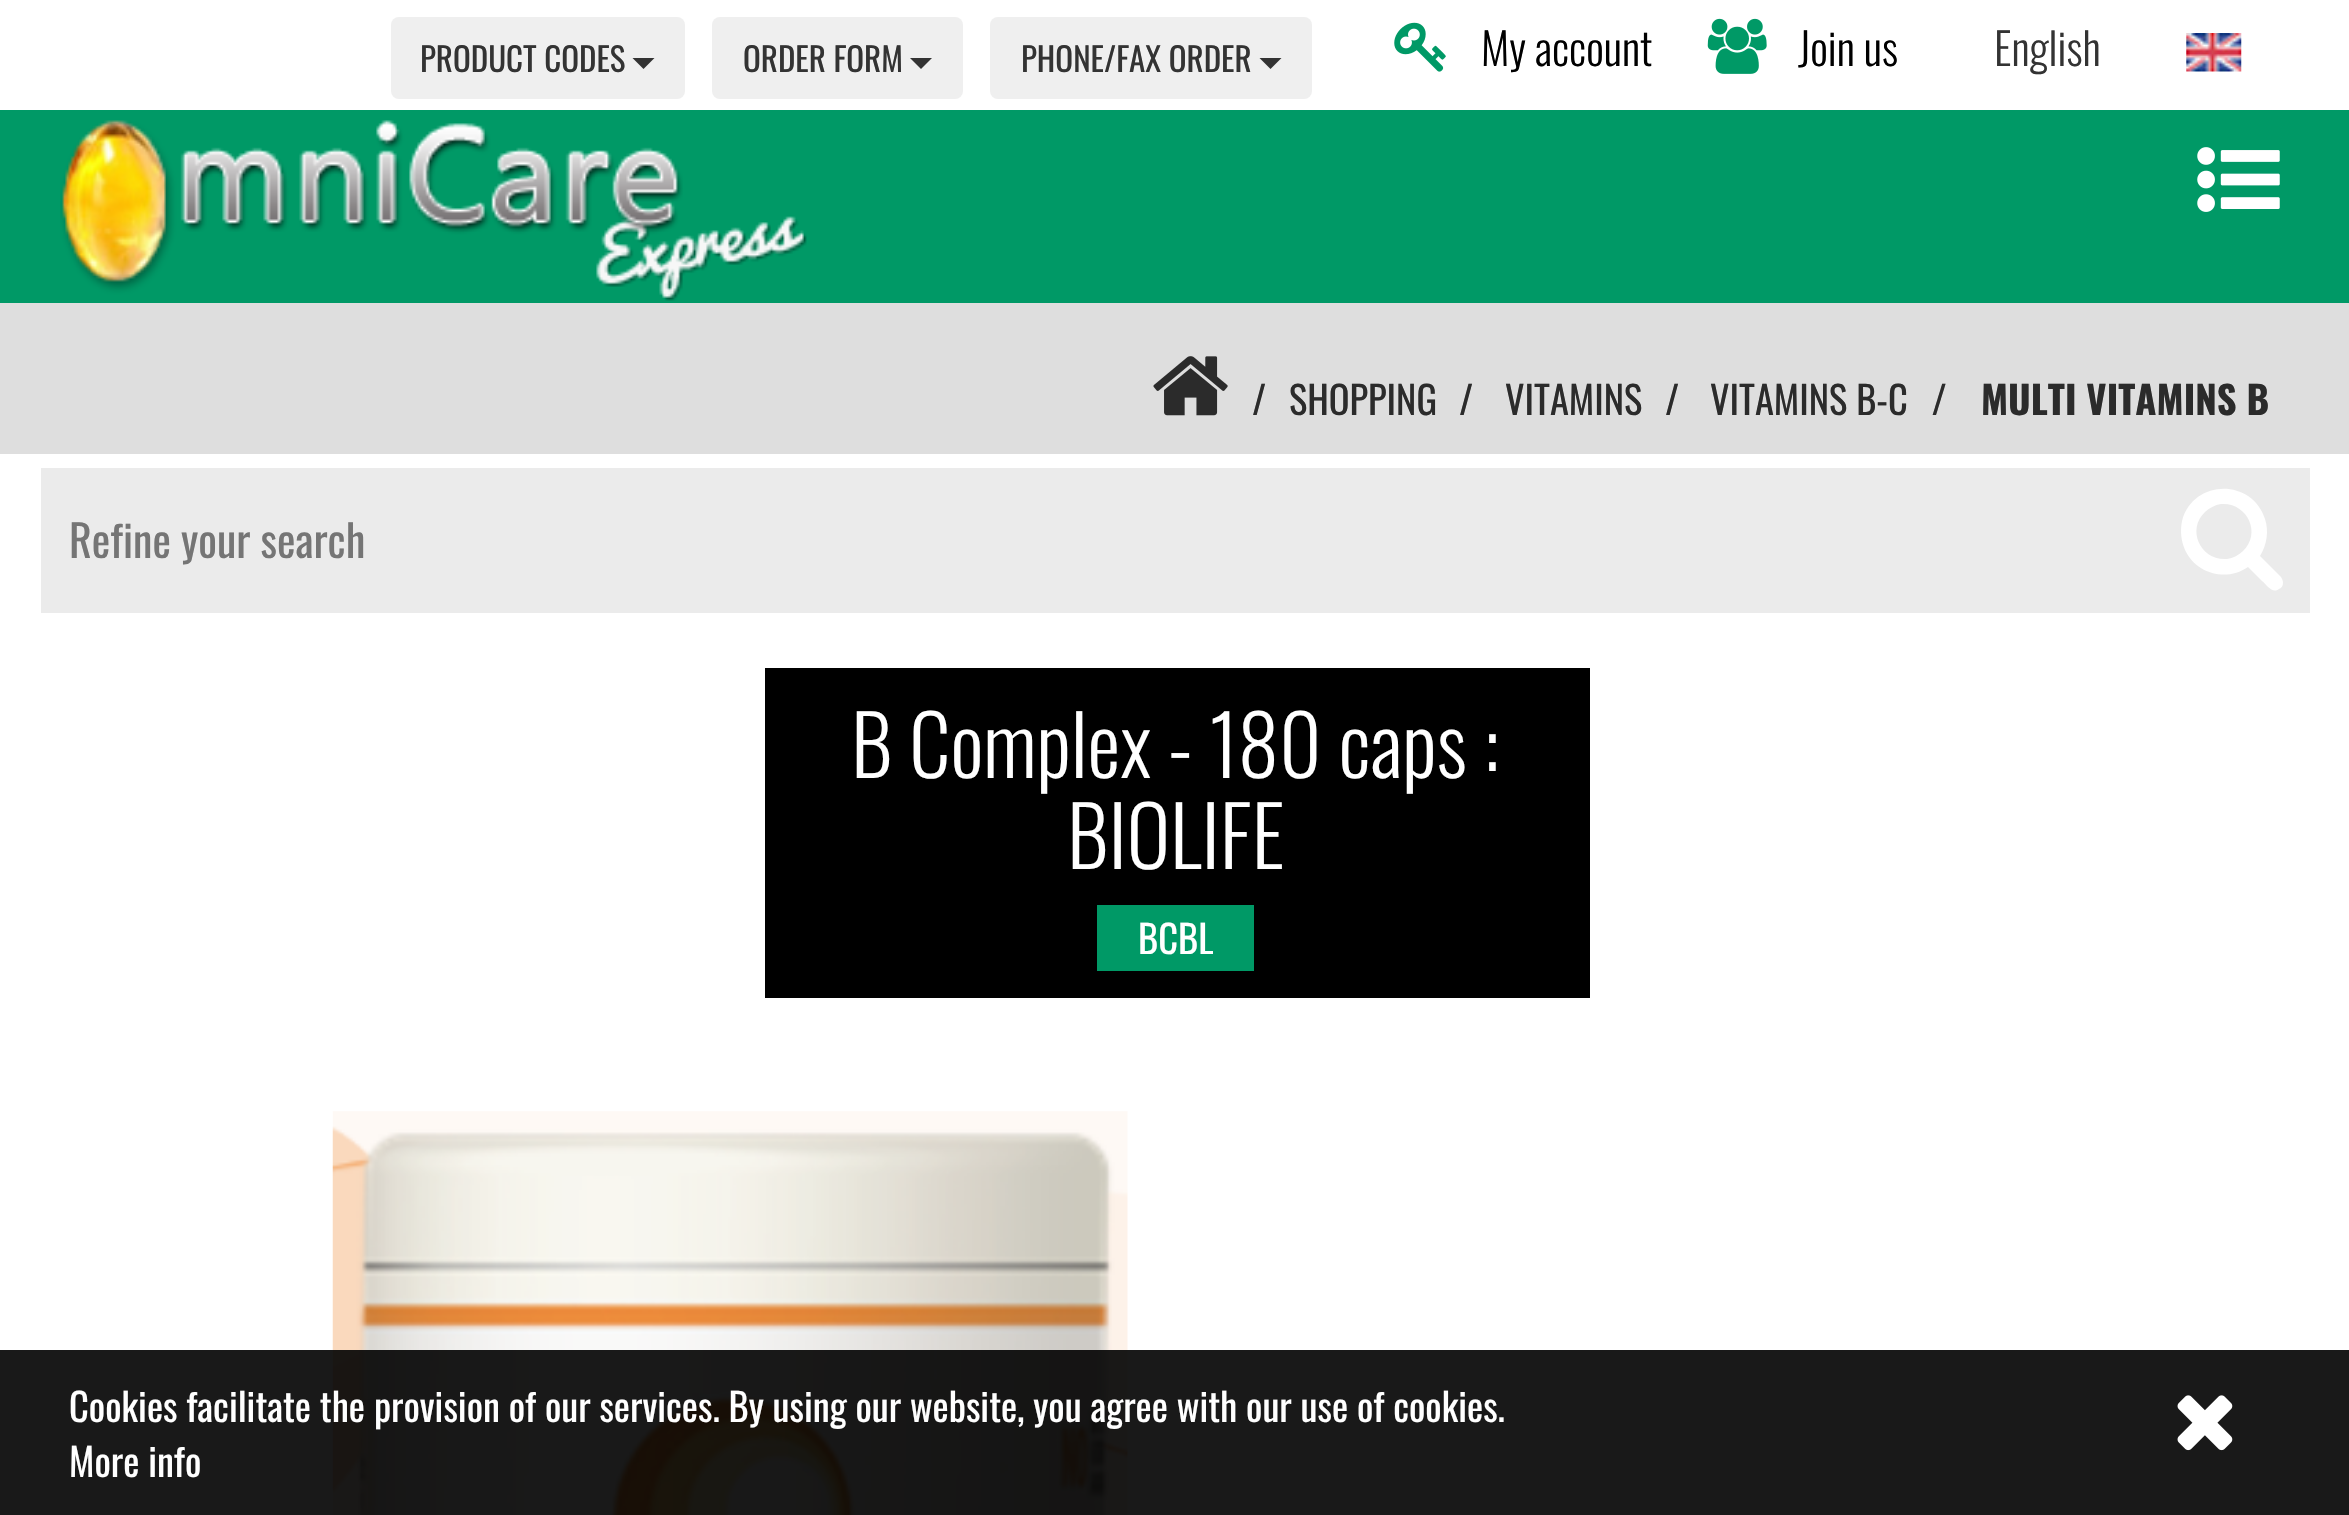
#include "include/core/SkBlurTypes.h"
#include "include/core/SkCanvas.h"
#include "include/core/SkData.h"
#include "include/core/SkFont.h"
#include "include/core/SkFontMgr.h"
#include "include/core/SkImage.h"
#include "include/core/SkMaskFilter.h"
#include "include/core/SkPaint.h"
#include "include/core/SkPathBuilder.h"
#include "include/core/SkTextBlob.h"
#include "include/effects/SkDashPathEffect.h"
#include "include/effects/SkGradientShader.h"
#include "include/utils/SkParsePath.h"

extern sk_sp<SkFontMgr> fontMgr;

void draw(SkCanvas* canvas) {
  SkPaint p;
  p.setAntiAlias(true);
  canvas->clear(SK_ColorWHITE);
  p.setColor(SkColorSetRGB(239, 239, 239));
  canvas->drawRoundRect(SkRect::MakeLTRB(391, 17, 685, 99), 8, 8, p);
  p.setColor(SkColorSetRGB(51, 51, 51));
  canvas->drawPath(SkPathBuilder().moveTo(632.5f, 58).lineTo(654.5f, 58).lineTo(643.5f, 69).close().detach(), p);
  p.setColor(SkColorSetRGB(239, 239, 239));
  canvas->drawRoundRect(SkRect::MakeLTRB(712, 17, 963, 99), 8, 8, p);
  p.setColor(SkColorSetRGB(51, 51, 51));
  canvas->drawPath(SkPathBuilder().moveTo(910, 58).lineTo(932, 58).lineTo(921, 69).close().detach(), p);
  p.setColor(SkColorSetRGB(239, 239, 239));
  canvas->drawRoundRect(SkRect::MakeLTRB(990, 17, 1312, 99), 8, 8, p);
  p.setColor(SkColorSetRGB(51, 51, 51));
  canvas->drawPath(SkPathBuilder().moveTo(1259.5f, 58).lineTo(1281.5f, 58).lineTo(1270.5f, 69).close().detach(), p);
  canvas->drawImageRect(SkImages::DeferredFromEncodedData(SkData::MakeFromFileName("images/1.png")), SkRect::MakeLTRB(1394, 22, 1446, 72), SkSamplingOptions());
  canvas->drawImageRect(SkImages::DeferredFromEncodedData(SkData::MakeFromFileName("images/2.png")), SkRect::MakeLTRB(1707, 18, 1767, 74), SkSamplingOptions());
  canvas->drawImageRect(SkImages::DeferredFromEncodedData(SkData::MakeFromFileName("images/3.png")), SkRect::MakeLTRB(2186, 33, 2242, 72), SkSamplingOptions());
  p.setColor(SkColorSetRGB(0, 153, 102));
  canvas->drawRect(SkRect::MakeLTRB(0, 110, 2349, 303), p);
  canvas->drawImageRect(SkImages::DeferredFromEncodedData(SkData::MakeFromFileName("images/4.png")), SkRect::MakeLTRB(60, 120, 807, 301), SkSamplingOptions());
  canvas->drawImageRect(SkImages::DeferredFromEncodedData(SkData::MakeFromFileName("images/5.png")), SkRect::MakeLTRB(2197, 147, 2280, 212), SkSamplingOptions());
  p.setColor(SkColorSetRGB(222, 222, 222));
  canvas->drawRect(SkRect::MakeLTRB(0, 303, 2349, 454), p);
  canvas->drawImageRect(SkImages::DeferredFromEncodedData(SkData::MakeFromFileName("images/6.png")), SkRect::MakeLTRB(1153, 356, 1228, 416), SkSamplingOptions());
  p.setColor(SkColorSetRGB(235, 235, 235));
  canvas->drawRect(SkRect::MakeLTRB(41, 468, 2310, 613), p);
  p.setColor(SK_ColorWHITE);
  canvas->drawPath(SkPathBuilder().moveTo(2243, 551).cubicTo(2262, 533, 2247, 502, 2221, 504).cubicTo(2215, 505, 2209, 508, 2205, 512).cubicTo(2186, 530, 2201, 561, 2227, 559).cubicTo(2233, 558, 2239, 555, 2243, 551).close().moveTo(2283, 583).cubicTo(2283, 585, 2282, 588, 2279, 589).cubicTo(2272, 594, 2267, 585, 2262, 581).lineTo(2248, 567).cubicTo(2227, 582, 2196, 574, 2185, 550).cubicTo(2181, 541, 2180, 531, 2182, 521).cubicTo(2193, 479, 2252, 478, 2265, 519).cubicTo(2269, 531, 2267, 545, 2260, 556).lineTo(2281, 577).cubicTo(2282, 579, 2283, 580, 2283, 583).close().detach(), p);
  p.setColor(SK_ColorBLACK);
  canvas->drawRect(SkRect::MakeLTRB(765, 668, 1590, 998), p);
  p.setColor(SkColorSetRGB(0, 153, 102));
  canvas->drawRect(SkRect::MakeLTRB(1097, 905, 1254, 971), p);
  canvas->drawImageRect(SkImages::DeferredFromEncodedData(SkData::MakeFromFileName("images/7.png")), SkRect::MakeLTRB(332, 1111, 1128, 1515), SkSamplingOptions());
  p.setColor(SkColorSetARGB(230, 0, 0, 0));
  canvas->drawRect(SkRect::MakeLTRB(0, 1350, 2349, 1515), p);
  canvas->drawImageRect(SkImages::DeferredFromEncodedData(SkData::MakeFromFileName("images/8.png")), SkRect::MakeLTRB(2177, 1395, 2233, 1451), SkSamplingOptions());
  SkFont font1(fontMgr->matchFamilyStyle("Oswald", SkFontStyle::Normal()), 33);
  font1.setSubpixel(true);
  p.setColor(SkColorSetRGB(51, 51, 51));
  canvas->drawString("PRODUCT CODES", 420, 72, font1, p);
  canvas->drawString("ORDER FORM", 743, 72, font1, p);
  canvas->drawString("PHONE/FAX ORDER", 1021, 72, font1, p);
  SkFont font2(fontMgr->matchFamilyStyle("Oswald", SkFontStyle(300, SkFontStyle::kNormal_Width, SkFontStyle::kUpright_Slant)), 44);
  font2.setSubpixel(true);
  p.setColor(SK_ColorBLACK);
  canvas->drawString("My account", 1481, 66, font2, p);
  canvas->drawString("Join us", 1798, 66, font2, p);
  p.setColor(SkColorSetRGB(51, 51, 51));
  canvas->drawString("English", 1994, 66, font2, p);
  SkFont font3(fontMgr->matchFamilyStyle("Oswald", SkFontStyle::Normal()), 38.5f);
  font3.setSubpixel(true);
  p.setColor(SkColorSetRGB(43, 43, 43));
  canvas->drawString("/", 1252, 415, font3, p);
  canvas->drawString("SHOPPING", 1289, 415, font3, p);
  canvas->drawString("/", 1459, 415, font3, p);
  canvas->drawString("VITAMINS", 1505, 415, font3, p);
  canvas->drawString("/", 1665, 415, font3, p);
  canvas->drawString("VITAMINS B-C", 1710, 415, font3, p);
  SkFont font4(fontMgr->matchFamilyStyle("Oswald", SkFontStyle::Bold()), 38.5f);
  font4.setSubpixel(true);
  canvas->drawString("/", 1931, 415, font4, p);
  canvas->drawString("MULTI VITAMINS B", 1981, 415, font4, p);
  SkFont font5(fontMgr->matchFamilyStyle("Oswald", SkFontStyle::Normal()), 44);
  font5.setSubpixel(true);
  p.setColor(SkColorSetRGB(117, 117, 117));
  canvas->drawString("Refine your search", 69, 558, font5, p);
  SkFont font6(fontMgr->matchFamilyStyle("Oswald", SkFontStyle(300, SkFontStyle::kNormal_Width, SkFontStyle::kUpright_Slant)), 82.5f);
  font6.setSubpixel(true);
  p.setColor(SK_ColorWHITE);
  canvas->drawString("B Complex - 180 caps :", 851, 778, font6, p);
  canvas->drawString("BIOLIFE", 1067, 869, font6, p);
  canvas->drawString("BCBL", 1138, 954, font3, p);
  canvas->drawString("Cookies facilitate the provision of our services. By using our website, you agree with our use of cookies.", 69, 1422, font3, p);
  canvas->drawString("More info", 69, 1477, font3, p);
}
